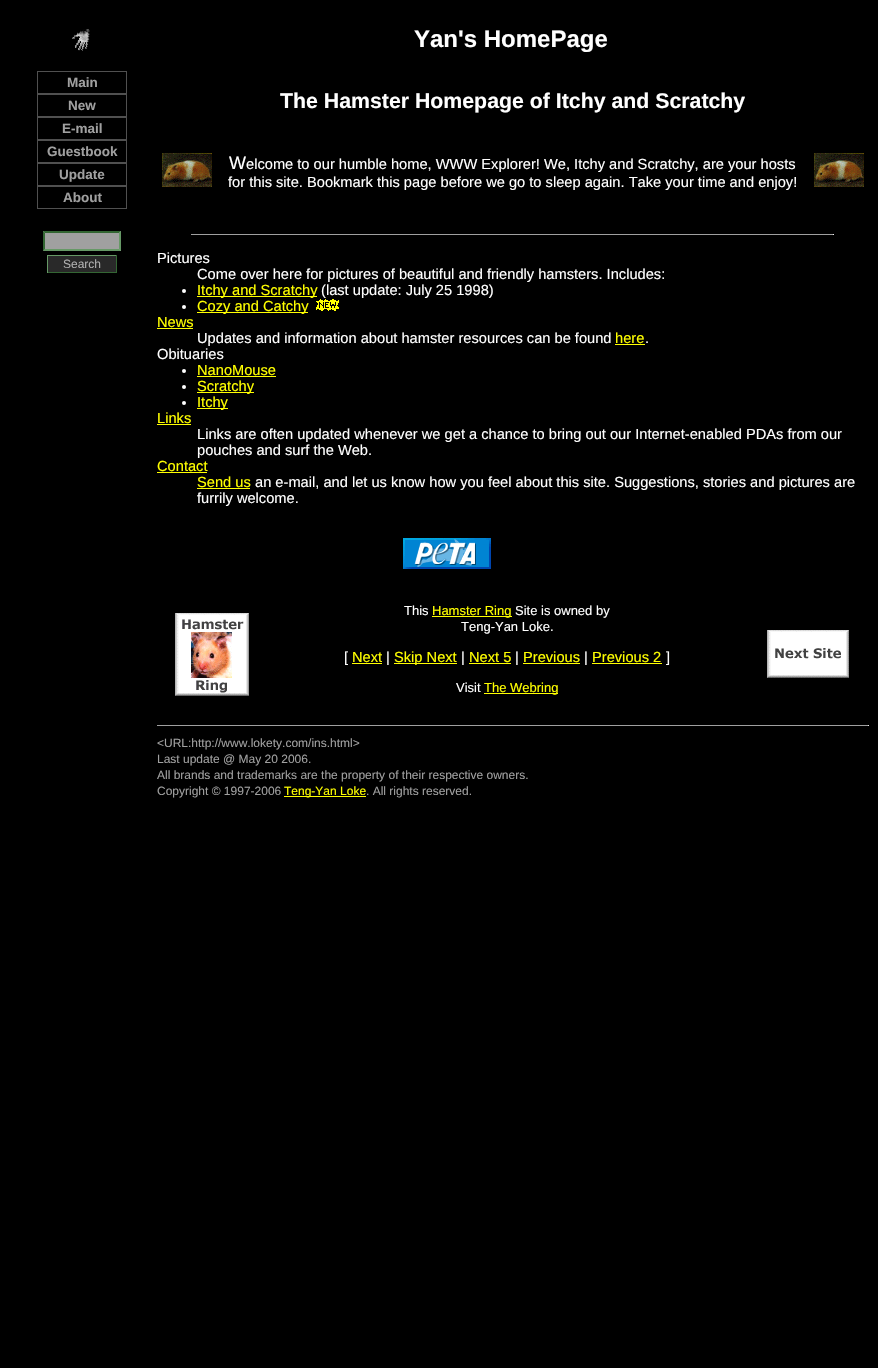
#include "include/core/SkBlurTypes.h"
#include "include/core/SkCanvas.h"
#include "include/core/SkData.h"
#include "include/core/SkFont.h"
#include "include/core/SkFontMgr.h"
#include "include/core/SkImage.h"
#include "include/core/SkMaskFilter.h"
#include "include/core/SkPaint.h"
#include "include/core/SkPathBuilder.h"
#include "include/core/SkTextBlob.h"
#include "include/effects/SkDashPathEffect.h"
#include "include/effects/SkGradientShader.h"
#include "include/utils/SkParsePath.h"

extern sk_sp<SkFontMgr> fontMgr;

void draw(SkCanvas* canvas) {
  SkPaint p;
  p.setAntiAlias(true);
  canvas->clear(SK_ColorBLACK);
  canvas->drawImageRect(SkImages::DeferredFromEncodedData(SkData::MakeFromFileName("images/1.png")), SkRect::MakeLTRB(72, 29, 90, 51), SkSamplingOptions());
  p.setStyle(SkPaint::kStroke_Style);
  p.setStrokeWidth(1);
  p.setColor(SkColorSetRGB(80, 80, 80));
  canvas->drawRect(SkRect::MakeLTRB(37.5f, 71.5f, 126.5f, 93.5f), p);
  canvas->drawRect(SkRect::MakeLTRB(37.5f, 94.5f, 126.5f, 116.5f), p);
  canvas->drawRect(SkRect::MakeLTRB(37.5f, 117.5f, 126.5f, 139.5f), p);
  canvas->drawRect(SkRect::MakeLTRB(37.5f, 140.5f, 126.5f, 162.5f), p);
  canvas->drawRect(SkRect::MakeLTRB(37.5f, 163.5f, 126.5f, 185.5f), p);
  canvas->drawRect(SkRect::MakeLTRB(37.5f, 186.5f, 126.5f, 208.5f), p);
  p.setStyle(SkPaint::kFill_Style);
  p.setColor(SkColorSetRGB(160, 160, 160));
  canvas->drawRect(SkRect::MakeLTRB(43, 231, 121, 251), p);
  p.setColor(SkColorSetRGB(51, 102, 51));
  canvas->drawPath(SkPathBuilder().moveTo(43, 231).lineTo(121, 231).lineTo(119, 233).lineTo(45, 233).close().detach(), p);
  p.setColor(SkColorSetRGB(102, 153, 102));
  canvas->drawPath(SkPathBuilder().moveTo(121, 231).lineTo(121, 251).lineTo(119, 249).lineTo(119, 233).close().detach(), p);
  canvas->drawPath(SkPathBuilder().moveTo(121, 251).lineTo(43, 251).lineTo(45, 249).lineTo(119, 249).close().detach(), p);
  p.setColor(SkColorSetRGB(51, 102, 51));
  canvas->drawPath(SkPathBuilder().moveTo(43, 251).lineTo(43, 231).lineTo(45, 233).lineTo(45, 249).close().detach(), p);
  p.setColor(SkColorSetRGB(41, 41, 41));
  canvas->drawRect(SkRect::MakeLTRB(48, 256, 116, 272), p);
  p.setColor(SkColorSetRGB(102, 153, 102));
  canvas->drawRect(SkRect::MakeLTRB(47, 255, 117, 256), p);
  p.setColor(SkColorSetRGB(51, 102, 51));
  canvas->drawRect(SkRect::MakeLTRB(116, 255, 117, 273), p);
  canvas->drawRect(SkRect::MakeLTRB(47, 272, 117, 273), p);
  p.setColor(SkColorSetRGB(102, 153, 102));
  canvas->drawRect(SkRect::MakeLTRB(47, 255, 48, 273), p);
  canvas->drawImageRect(SkImages::DeferredFromEncodedData(SkData::MakeFromFileName("images/2.png")), SkRect::MakeLTRB(162, 153, 212, 187), SkSamplingOptions());
  canvas->drawImageRect(SkImages::DeferredFromEncodedData(SkData::MakeFromFileName("images/2.png")), SkRect::MakeLTRB(814, 153, 864, 187), SkSamplingOptions());
  p.setColor(SkColorSetRGB(159, 159, 159));
  canvas->drawRect(SkRect::MakeLTRB(191, 234, 834, 235), p);
  p.setColor(SkColorSetRGB(238, 238, 238));
  canvas->drawRect(SkRect::MakeLTRB(833, 234, 834, 235), p);
  p.setColor(SK_ColorWHITE);
  canvas->drawCircle(184, 291, 2, p);
  p.setColor(SkColorSetRGB(255, 255, 0));
  canvas->drawRect(SkRect::MakeLTRB(197, 296, 317, 297), p);
  p.setColor(SK_ColorWHITE);
  canvas->drawCircle(184, 307, 2, p);
  p.setColor(SkColorSetRGB(255, 255, 0));
  canvas->drawRect(SkRect::MakeLTRB(197, 312, 308, 313), p);
  canvas->drawImageRect(SkImages::DeferredFromEncodedData(SkData::MakeFromFileName("images/3.png")), SkRect::MakeLTRB(316, 299, 339, 311), SkSamplingOptions());
  canvas->drawRect(SkRect::MakeLTRB(157, 328, 193, 329), p);
  canvas->drawRect(SkRect::MakeLTRB(615, 344, 645, 345), p);
  p.setColor(SK_ColorWHITE);
  canvas->drawCircle(184, 371, 2, p);
  p.setColor(SkColorSetRGB(255, 255, 0));
  canvas->drawRect(SkRect::MakeLTRB(197, 376, 276, 377), p);
  p.setColor(SK_ColorWHITE);
  canvas->drawCircle(184, 387, 2, p);
  p.setColor(SkColorSetRGB(255, 255, 0));
  canvas->drawRect(SkRect::MakeLTRB(197, 392, 254, 393), p);
  p.setColor(SK_ColorWHITE);
  canvas->drawCircle(184, 403, 2, p);
  p.setColor(SkColorSetRGB(255, 255, 0));
  canvas->drawRect(SkRect::MakeLTRB(197, 408, 228, 409), p);
  canvas->drawRect(SkRect::MakeLTRB(157, 424, 191, 425), p);
  canvas->drawRect(SkRect::MakeLTRB(157, 472, 207, 473), p);
  canvas->drawRect(SkRect::MakeLTRB(197, 488, 250, 489), p);
  canvas->drawImageRect(SkImages::DeferredFromEncodedData(SkData::MakeFromFileName("images/4.png")), SkRect::MakeLTRB(403, 538, 491, 569), SkSamplingOptions());
  canvas->drawImageRect(SkImages::DeferredFromEncodedData(SkData::MakeFromFileName("images/5.png")), SkRect::MakeLTRB(175, 613, 249, 696), SkSamplingOptions());
  canvas->drawRect(SkRect::MakeLTRB(432, 616, 512, 617), p);
  canvas->drawRect(SkRect::MakeLTRB(352, 663, 382, 664), p);
  canvas->drawRect(SkRect::MakeLTRB(394, 663, 457, 664), p);
  canvas->drawRect(SkRect::MakeLTRB(469, 663, 511, 664), p);
  canvas->drawRect(SkRect::MakeLTRB(523, 663, 580, 664), p);
  canvas->drawRect(SkRect::MakeLTRB(592, 663, 662, 664), p);
  canvas->drawRect(SkRect::MakeLTRB(484, 693, 558, 694), p);
  canvas->drawImageRect(SkImages::DeferredFromEncodedData(SkData::MakeFromFileName("images/6.png")), SkRect::MakeLTRB(767, 630, 849, 678), SkSamplingOptions());
  p.setColor(SkColorSetRGB(159, 159, 159));
  canvas->drawRect(SkRect::MakeLTRB(157, 725, 869, 726), p);
  p.setColor(SkColorSetRGB(238, 238, 238));
  canvas->drawRect(SkRect::MakeLTRB(868, 725, 869, 726), p);
  p.setColor(SkColorSetRGB(255, 255, 0));
  canvas->drawRect(SkRect::MakeLTRB(284, 796, 366, 797), p);
  SkFont font1(fontMgr->matchFamilyStyle("Liberation Sans", SkFontStyle::Bold()), 24);
  font1.setSubpixel(true);
  p.setColor(SK_ColorWHITE);
  canvas->drawString("Yan's HomePage", 414, 47, font1, p);
  SkFont font2(fontMgr->matchFamilyStyle("Liberation Sans", SkFontStyle::Bold()), 13.5f);
  font2.setSubpixel(true);
  p.setColor(SkColorSetRGB(160, 160, 160));
  canvas->drawString("Main", 67, 87, font2, p);
  canvas->drawString("New", 68, 110, font2, p);
  canvas->drawString("E-mail", 62, 133, font2, p);
  canvas->drawString("Guestbook", 47, 156, font2, p);
  canvas->drawString("Update", 59, 179, font2, p);
  canvas->drawString("About", 63, 202, font2, p);
  SkFont font3(fontMgr->matchFamilyStyle("Liberation Sans", SkFontStyle::Normal()), 12);
  font3.setSubpixel(true);
  p.setColor(SkColorSetRGB(175, 175, 175));
  canvas->drawString("Search", 63, 268, font3, p);
  SkFont font4(fontMgr->matchFamilyStyle("Liberation Sans", SkFontStyle::Bold()), 21.3f);
  font4.setSubpixel(true);
  p.setColor(SK_ColorWHITE);
  canvas->drawString("The Hamster Homepage of Itchy and Scratchy", 280, 108, font4, p);
  SkFont font5(fontMgr->matchFamilyStyle("Liberation Sans", SkFontStyle::Normal()), 18);
  font5.setSubpixel(true);
  canvas->drawString("W", 229, 169, font5, p);
  SkFont font6(fontMgr->matchFamilyStyle("Liberation Sans", SkFontStyle::Normal()), 14.65f);
  font6.setSubpixel(true);
  canvas->drawString("elcome to our humble home, WWW Explorer! We, Itchy and Scratchy, are your hosts", 246, 169, font6, p);
  canvas->drawString("for this site. Bookmark this page before we go to sleep again. Take your time and enjoy!", 228, 187, font6, p);
  canvas->drawString("Pictures", 157, 263, font6, p);
  canvas->drawString("Come over here for pictures of beautiful and friendly hamsters. Includes:", 197, 279, font6, p);
  p.setColor(SkColorSetRGB(255, 255, 0));
  canvas->drawString("Itchy and Scratchy", 197, 295, font6, p);
  p.setColor(SK_ColorWHITE);
  canvas->drawString("(last update: July 25 1998)", 321, 295, font6, p);
  p.setColor(SkColorSetRGB(255, 255, 0));
  canvas->drawString("Cozy and Catchy", 197, 311, font6, p);
  canvas->drawString("News", 157, 327, font6, p);
  p.setColor(SK_ColorWHITE);
  canvas->drawString("Updates and information about hamster resources can be found", 197, 343, font6, p);
  p.setColor(SkColorSetRGB(255, 255, 0));
  canvas->drawString("here", 615, 343, font6, p);
  p.setColor(SK_ColorWHITE);
  canvas->drawString(".", 645, 343, font6, p);
  canvas->drawString("Obituaries", 157, 359, font6, p);
  p.setColor(SkColorSetRGB(255, 255, 0));
  canvas->drawString("NanoMouse", 197, 375, font6, p);
  canvas->drawString("Scratchy", 197, 391, font6, p);
  canvas->drawString("Itchy", 197, 407, font6, p);
  canvas->drawString("Links", 157, 423, font6, p);
  p.setColor(SK_ColorWHITE);
  canvas->drawString("Links are often updated whenever we get a chance to bring out our Internet-enabled PDAs from our", 197, 439, font6, p);
  canvas->drawString("pouches and surf the Web.", 197, 455, font6, p);
  p.setColor(SkColorSetRGB(255, 255, 0));
  canvas->drawString("Contact", 157, 471, font6, p);
  canvas->drawString("Send us", 197, 487, font6, p);
  p.setColor(SK_ColorWHITE);
  canvas->drawString("an e-mail, and let us know how you feel about this site. Suggestions, stories and pictures are", 255, 487, font6, p);
  canvas->drawString("furrily welcome.", 197, 503, font6, p);
  SkFont font7(fontMgr->matchFamilyStyle("Liberation Sans", SkFontStyle::Normal()), 13);
  font7.setSubpixel(true);
  canvas->drawString("This", 404, 615, font7, p);
  p.setColor(SkColorSetRGB(255, 255, 0));
  canvas->drawString("Hamster Ring", 432, 615, font7, p);
  p.setColor(SK_ColorWHITE);
  canvas->drawString("Site is owned by", 515, 615, font7, p);
  canvas->drawString("Teng-Yan Loke.", 461, 631, font7, p);
  canvas->drawString("[", 344, 662, font6, p);
  p.setColor(SkColorSetRGB(255, 255, 0));
  canvas->drawString("Next", 352, 662, font6, p);
  p.setColor(SK_ColorWHITE);
  canvas->drawString("|", 386, 662, font6, p);
  p.setColor(SkColorSetRGB(255, 255, 0));
  canvas->drawString("Skip Next", 394, 662, font6, p);
  p.setColor(SK_ColorWHITE);
  canvas->drawString("|", 461, 662, font6, p);
  p.setColor(SkColorSetRGB(255, 255, 0));
  canvas->drawString("Next 5", 469, 662, font6, p);
  p.setColor(SK_ColorWHITE);
  canvas->drawString("|", 515, 662, font6, p);
  p.setColor(SkColorSetRGB(255, 255, 0));
  canvas->drawString("Previous", 523, 662, font6, p);
  p.setColor(SK_ColorWHITE);
  canvas->drawString("|", 584, 662, font6, p);
  p.setColor(SkColorSetRGB(255, 255, 0));
  canvas->drawString("Previous 2", 592, 662, font6, p);
  p.setColor(SK_ColorWHITE);
  canvas->drawString("]", 666, 662, font6, p);
  canvas->drawString("Visit", 456, 692, font7, p);
  p.setColor(SkColorSetRGB(255, 255, 0));
  canvas->drawString("The Webring", 484, 692, font7, p);
  p.setColor(SkColorSetRGB(160, 160, 160));
  canvas->drawString("<URL:http://www.lokety.com/ins.html>", 157, 747, font3, p);
  canvas->drawString("Last update @ May 20 2006.", 157, 763, font3, p);
  canvas->drawString("All brands and trademarks are the property of their respective owners.", 157, 779, font3, p);
  canvas->drawString("Copyright © 1997-2006", 157, 795, font3, p);
  p.setColor(SkColorSetRGB(255, 255, 0));
  canvas->drawString("Teng-Yan Loke", 284, 795, font3, p);
  p.setColor(SkColorSetRGB(160, 160, 160));
  canvas->drawString(". All rights reserved.", 366, 795, font3, p);
}
